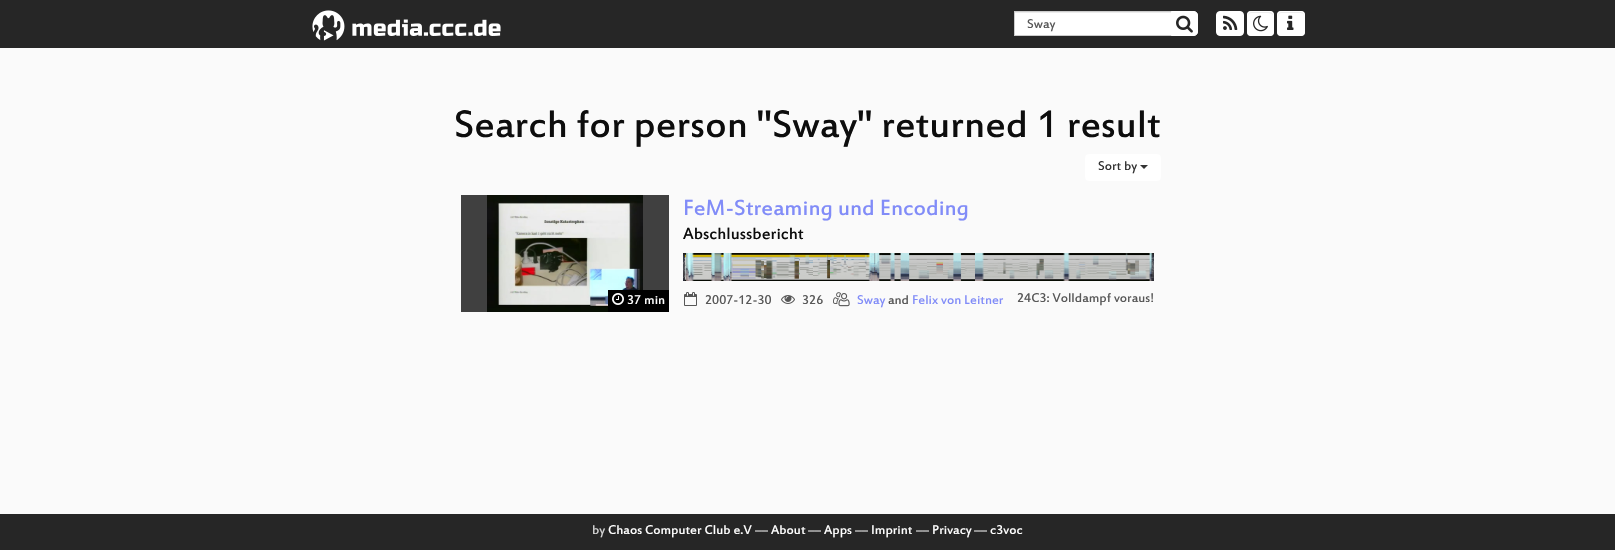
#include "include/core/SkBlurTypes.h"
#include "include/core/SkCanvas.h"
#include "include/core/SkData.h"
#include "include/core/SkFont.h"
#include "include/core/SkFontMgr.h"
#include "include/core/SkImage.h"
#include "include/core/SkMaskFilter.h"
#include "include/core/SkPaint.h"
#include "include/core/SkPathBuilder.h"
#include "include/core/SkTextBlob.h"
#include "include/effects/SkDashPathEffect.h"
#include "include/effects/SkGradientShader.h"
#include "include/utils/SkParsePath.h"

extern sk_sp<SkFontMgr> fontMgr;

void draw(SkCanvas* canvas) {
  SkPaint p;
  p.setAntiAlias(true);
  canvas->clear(SkColorSetRGB(250, 250, 250));
  p.setColor(SkColorSetRGB(38, 38, 38));
  canvas->drawRect(SkRect::MakeLTRB(0, 0, 1615, 48), p);
  canvas->drawImageRect(SkImages::DeferredFromEncodedData(SkData::MakeFromFileName("images/1.png")), SkRect::MakeLTRB(312, 10, 501, 41), SkSamplingOptions());
  p.setColor(SK_ColorWHITE);
  canvas->drawRect(SkRect::MakeLTRB(1015, 13, 1171, 35), p);
  p.setColor(SkColorSetRGB(236, 236, 236));
  canvas->drawRect(SkRect::MakeLTRB(1015, 12, 1171, 13), p);
  p.setStyle(SkPaint::kStroke_Style);
  p.setStrokeWidth(1);
  p.setColor(SkColorSetRGB(204, 204, 204));
  canvas->drawRect(SkRect::MakeLTRB(1014.5f, 11.5f, 1171.5f, 35.5f), p);
  p.setStyle(SkPaint::kFill_Style);
  p.setColor(SK_ColorWHITE);
  canvas->drawPath(SkPathBuilder().moveTo(1171.5f, 11.5f).lineTo(1194, 11.5f).cubicTo(1196, 11.5f, 1197.5f, 13, 1197.5f, 15).lineTo(1197.5f, 32).cubicTo(1197.5f, 34, 1196, 35.5f, 1194, 35.5f).lineTo(1171.5f, 35.5f).close().detach(), p);
  p.setStyle(SkPaint::kStroke_Style);
  canvas->drawPath(SkPathBuilder().moveTo(1171.5f, 11.5f).lineTo(1194, 11.5f).cubicTo(1196, 11.5f, 1197.5f, 13, 1197.5f, 15).lineTo(1197.5f, 32).cubicTo(1197.5f, 34, 1196, 35.5f, 1194, 35.5f).lineTo(1171.5f, 35.5f).close().detach(), p);
  canvas->drawImageRect(SkImages::DeferredFromEncodedData(SkData::MakeFromFileName("images/2.png")), SkRect::MakeLTRB(1176, 15, 1193, 33), SkSamplingOptions());
  p.setStyle(SkPaint::kFill_Style);
  canvas->drawRoundRect(SkRect::MakeLTRB(1216.5f, 11.5f, 1243.5f, 35.5f), 3.5f, 3.5f, p);
  p.setStyle(SkPaint::kStroke_Style);
  canvas->drawRoundRect(SkRect::MakeLTRB(1216.5f, 11.5f, 1243.5f, 35.5f), 3.5f, 3.5f, p);
  canvas->drawImageRect(SkImages::DeferredFromEncodedData(SkData::MakeFromFileName("images/3.png")), SkRect::MakeLTRB(1223, 15, 1238, 30), SkSamplingOptions());
  p.setStyle(SkPaint::kFill_Style);
  canvas->drawRoundRect(SkRect::MakeLTRB(1247, 11, 1274, 36), 4, 4, p);
  p.setColor(SkColorSetRGB(236, 236, 236));
  canvas->drawPath(SkPathBuilder().moveTo(1251, 13).lineTo(1267, 13).cubicTo(1271, 13, 1272.5f, 14, 1273, 15.5f).cubicTo(1273, 11.5f, 1270, 12, 1267, 12).lineTo(1254, 12).cubicTo(1251.5f, 12, 1248, 11.5f, 1248, 15.5f).cubicTo(1248.5f, 14, 1249.5f, 13, 1251, 13).close().detach(), p);
  p.setStyle(SkPaint::kStroke_Style);
  p.setColor(SK_ColorWHITE);
  canvas->drawRoundRect(SkRect::MakeLTRB(1247.5f, 11.5f, 1273.5f, 35.5f), 3.5f, 3.5f, p);
  canvas->drawImageRect(SkImages::DeferredFromEncodedData(SkData::MakeFromFileName("images/4.png")), SkRect::MakeLTRB(1253, 15, 1268, 32), SkSamplingOptions());
  p.setStyle(SkPaint::kFill_Style);
  canvas->drawRoundRect(SkRect::MakeLTRB(1277, 11, 1305, 36), 4, 4, p);
  p.setColor(SkColorSetRGB(236, 236, 236));
  canvas->drawPath(SkPathBuilder(SkPathFillType::kEvenOdd).moveTo(1281, 13).lineTo(1298, 13).cubicTo(1302.5f, 13, 1304, 13.5f, 1304, 16).lineTo(1304, 15).cubicTo(1304, 13.5f, 1302.5f, 12, 1301, 12).lineTo(1281, 12).cubicTo(1279.5f, 12, 1278, 13.5f, 1278, 15).lineTo(1278, 19).cubicTo(1278, 17, 1278, 13, 1281, 13).close().moveTo(1278, 33).lineTo(1278, 30).close().detach(), p);
  p.setStyle(SkPaint::kStroke_Style);
  p.setColor(SK_ColorWHITE);
  canvas->drawRoundRect(SkRect::MakeLTRB(1277.5f, 11.5f, 1304.5f, 35.5f), 3.5f, 3.5f, p);
  canvas->drawImageRect(SkImages::DeferredFromEncodedData(SkData::MakeFromFileName("images/5.png")), SkRect::MakeLTRB(1287, 15, 1294, 30), SkSamplingOptions());
  p.setStyle(SkPaint::kFill_Style);
  canvas->drawRoundRect(SkRect::MakeLTRB(1085, 154, 1161, 181), 4, 4, p);
  p.setColor(SkColorSetRGB(51, 51, 51));
  canvas->drawPath(SkPathBuilder().moveTo(1140, 165).lineTo(1148, 165).lineTo(1144, 169).close().detach(), p);
  p.setColor(SkColorSetRGB(64, 64, 64));
  canvas->drawRect(SkRect::MakeLTRB(461, 195, 669, 312), p);
  canvas->drawImageRect(SkImages::DeferredFromEncodedData(SkData::MakeFromFileName("images/6.png")), SkRect::MakeLTRB(487, 195, 643, 312), SkSamplingOptions());
  p.setColor(SK_ColorBLACK);
  canvas->drawRect(SkRect::MakeLTRB(608, 290, 669, 312), p);
  canvas->drawImageRect(SkImages::DeferredFromEncodedData(SkData::MakeFromFileName("images/7.png")), SkRect::MakeLTRB(612, 293, 624, 305), SkSamplingOptions());
  canvas->drawImageRect(SkImages::DeferredFromEncodedData(SkData::MakeFromFileName("images/8.png")), SkRect::MakeLTRB(683, 253, 1154, 281), SkSamplingOptions());
  canvas->drawImageRect(SkImages::DeferredFromEncodedData(SkData::MakeFromFileName("images/9.png")), SkRect::MakeLTRB(684, 292, 697, 306), SkSamplingOptions());
  canvas->drawImageRect(SkImages::DeferredFromEncodedData(SkData::MakeFromFileName("images/10.png")), SkRect::MakeLTRB(781, 295, 795, 304), SkSamplingOptions());
  canvas->drawImageRect(SkImages::DeferredFromEncodedData(SkData::MakeFromFileName("images/11.png")), SkRect::MakeLTRB(833, 292, 850, 307), SkSamplingOptions());
  p.setColor(SkColorSetRGB(38, 38, 38));
  canvas->drawRect(SkRect::MakeLTRB(0, 514, 1615, 550), p);
  SkFont font1(fontMgr->matchFamilyStyle("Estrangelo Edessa", SkFontStyle::Normal()), 14);
  font1.setSubpixel(true);
  p.setColor(SkColorSetRGB(88, 88, 88));
  canvas->drawString("Sway", 1027, 28, font1, p);
  SkFont font2(fontMgr->matchFamilyStyle("Estrangelo Edessa", SkFontStyle::Normal()), 42);
  font2.setSubpixel(true);
  p.setColor(SkColorSetRGB(13, 13, 13));
  canvas->drawString("Search for person \"Sway\" returned 1 result", 454, 137, font2, p);
  p.setColor(SkColorSetRGB(51, 51, 51));
  canvas->drawString("Sort by", 1098, 170, font1, p);
  p.setColor(SK_ColorWHITE);
  canvas->drawString("37 min", 627, 304, font1, p);
  SkFont font3(fontMgr->matchFamilyStyle("Estrangelo Edessa", SkFontStyle::Normal()), 24);
  font3.setSubpixel(true);
  p.setColor(SkColorSetRGB(129, 140, 248));
  canvas->drawString("FeM-Streaming und Encoding", 683, 215, font3, p);
  SkFont font4(fontMgr->matchFamilyStyle("Estrangelo Edessa", SkFontStyle::Normal()), 18);
  font4.setSubpixel(true);
  p.setColor(SkColorSetRGB(13, 13, 13));
  canvas->drawString("Abschlussbericht", 683, 239, font4, p);
  p.setColor(SkColorSetRGB(88, 88, 88));
  canvas->drawString("2007-12-30", 705, 304, font1, p);
  canvas->drawString("326", 802, 304, font1, p);
  p.setColor(SkColorSetRGB(129, 140, 248));
  canvas->drawString("Sway", 857, 304, font1, p);
  p.setColor(SkColorSetRGB(88, 88, 88));
  canvas->drawString("and", 888, 304, font1, p);
  p.setColor(SkColorSetRGB(129, 140, 248));
  canvas->drawString("Felix von Leitner", 912, 304, font1, p);
  p.setColor(SkColorSetRGB(88, 88, 88));
  canvas->drawString("24C3: Volldampf voraus!", 1017, 302, font1, p);
  p.setColor(SkColorSetRGB(212, 212, 212));
  canvas->drawString("by", 592, 534, font1, p);
  p.setColor(SK_ColorWHITE);
  canvas->drawString("Chaos Computer Club e.V", 608, 534, font1, p);
  p.setColor(SkColorSetRGB(212, 212, 212));
  canvas->drawString("––", 755, 534, font1, p);
  p.setColor(SK_ColorWHITE);
  canvas->drawString("About", 771, 534, font1, p);
  p.setColor(SkColorSetRGB(212, 212, 212));
  canvas->drawString("––", 808, 534, font1, p);
  p.setColor(SK_ColorWHITE);
  canvas->drawString("Apps", 824, 534, font1, p);
  p.setColor(SkColorSetRGB(212, 212, 212));
  canvas->drawString("––", 855, 534, font1, p);
  p.setColor(SK_ColorWHITE);
  canvas->drawString("Imprint", 871, 534, font1, p);
  p.setColor(SkColorSetRGB(212, 212, 212));
  canvas->drawString("––", 916, 534, font1, p);
  p.setColor(SK_ColorWHITE);
  canvas->drawString("Privacy", 932, 534, font1, p);
  p.setColor(SkColorSetRGB(212, 212, 212));
  canvas->drawString("––", 974, 534, font1, p);
  p.setColor(SK_ColorWHITE);
  canvas->drawString("c3voc", 990, 534, font1, p);
}
